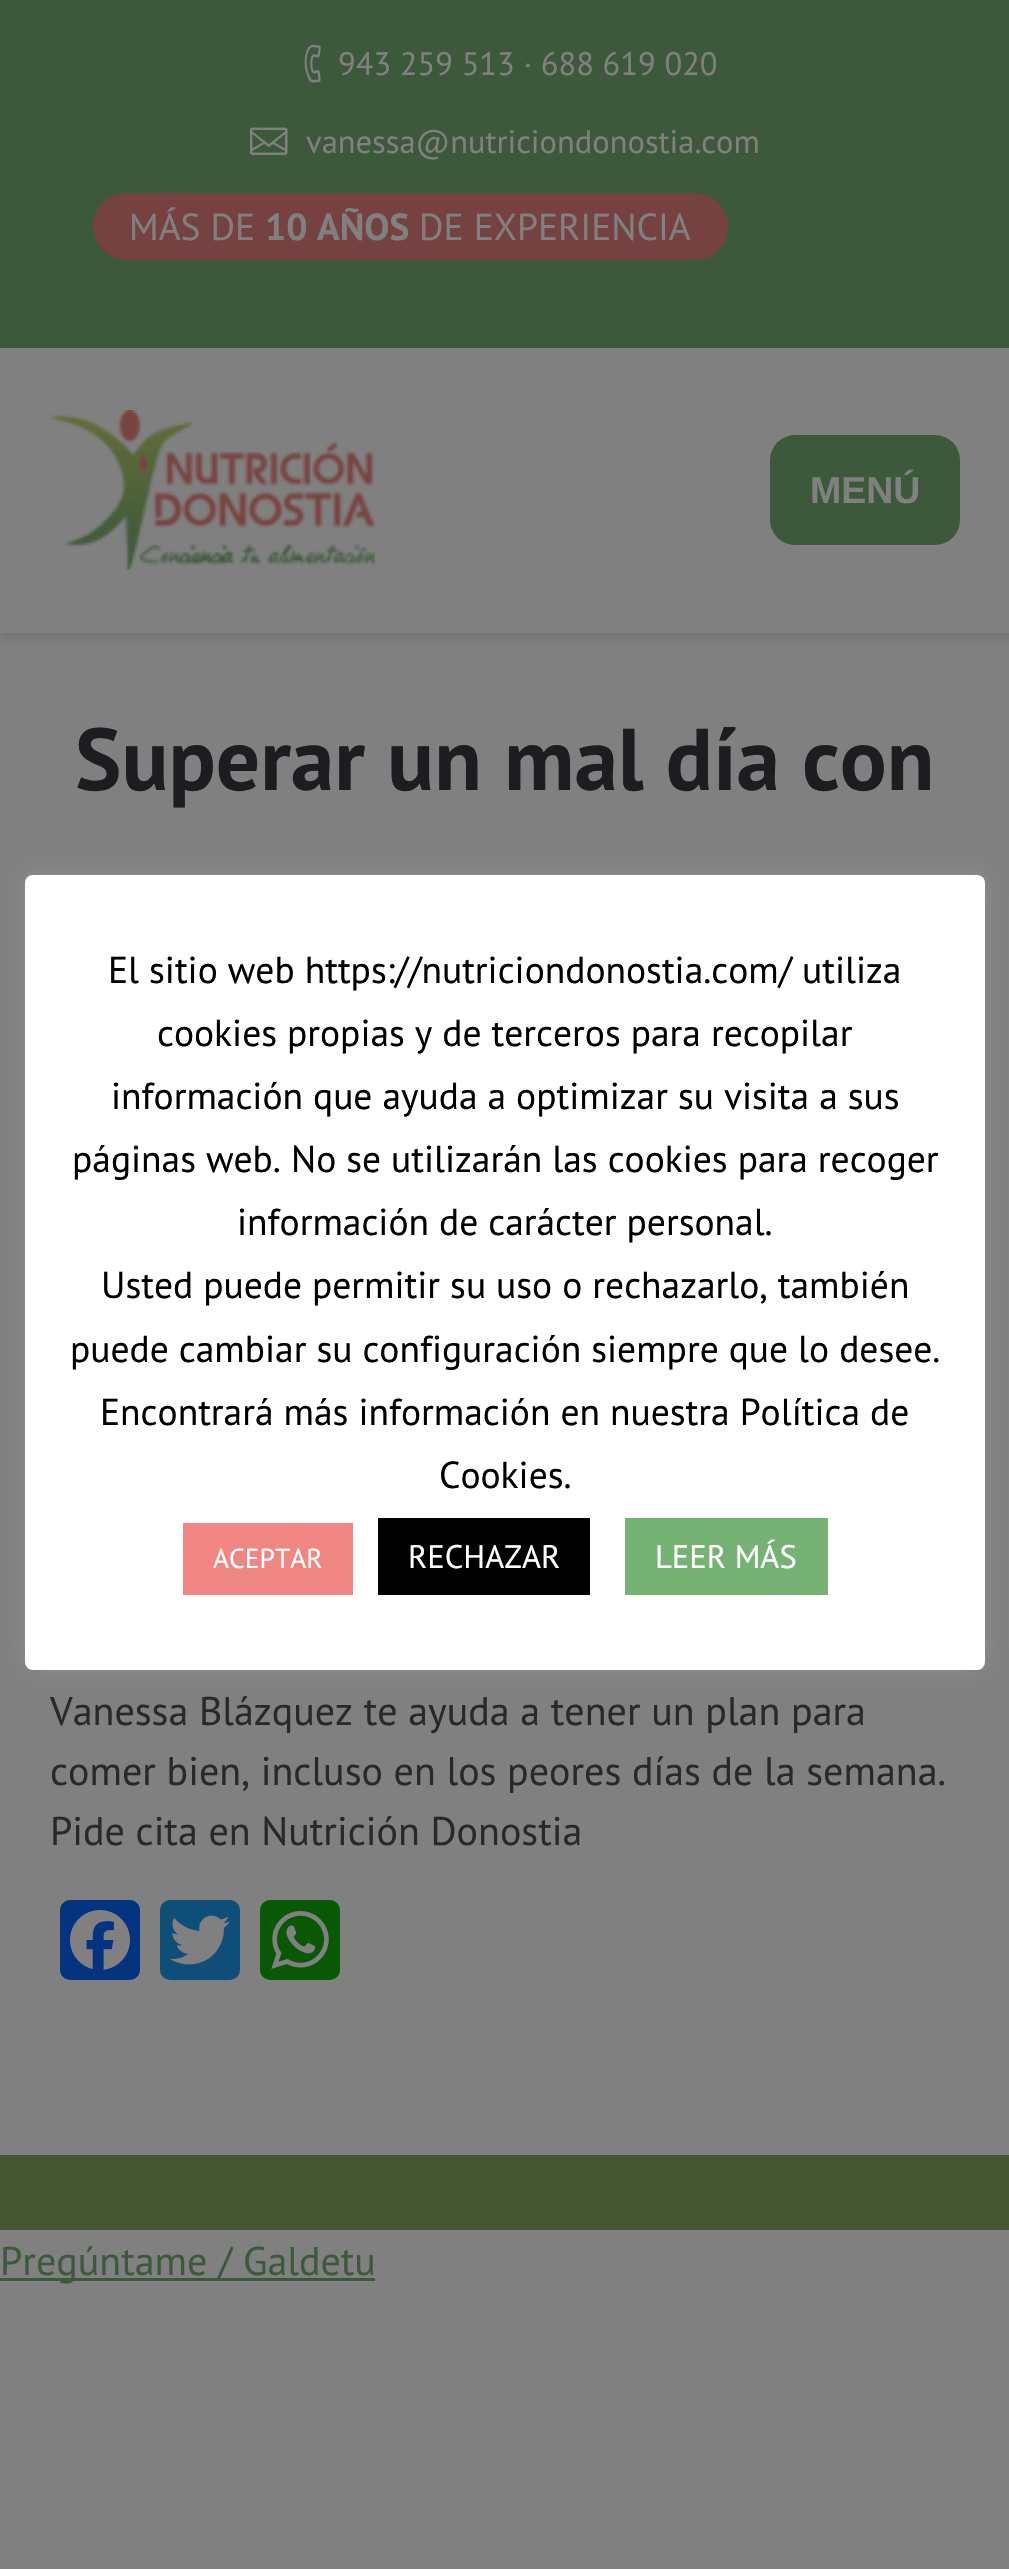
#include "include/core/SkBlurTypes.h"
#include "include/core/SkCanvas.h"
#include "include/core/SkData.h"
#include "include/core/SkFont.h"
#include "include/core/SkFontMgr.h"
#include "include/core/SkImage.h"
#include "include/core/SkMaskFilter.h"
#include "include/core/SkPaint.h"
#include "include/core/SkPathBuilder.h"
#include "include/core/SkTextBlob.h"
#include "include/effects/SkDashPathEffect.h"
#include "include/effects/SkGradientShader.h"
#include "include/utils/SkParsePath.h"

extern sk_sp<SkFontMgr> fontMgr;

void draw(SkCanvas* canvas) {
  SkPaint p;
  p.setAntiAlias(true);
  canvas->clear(SkColorSetRGB(128, 128, 128));
  p.setColor(SkColorSetARGB(26, 0, 0, 0));
  p.setMaskFilter(SkMaskFilter::MakeBlur(kNormal_SkBlurStyle, 5));
  canvas->drawRect(SkRect::MakeLTRB(0, 0, 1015, 638), p);
  p.setMaskFilter(nullptr);
  p.setColor(SkColorSetRGB(128, 128, 128));
  canvas->drawRect(SkRect::MakeLTRB(0, 348, 1009, 633), p);
  p.setColor(SkColorSetRGB(60, 89, 59));
  canvas->drawRect(SkRect::MakeLTRB(0, 0, 1009, 348), p);
  canvas->drawImageRect(SkImages::DeferredFromEncodedData(SkData::MakeFromFileName("images/1.png")), SkRect::MakeLTRB(304, 45, 321, 83), SkSamplingOptions());
  canvas->drawImageRect(SkImages::DeferredFromEncodedData(SkData::MakeFromFileName("images/2.png")), SkRect::MakeLTRB(250, 127, 288, 155), SkSamplingOptions());
  p.setColor(SkColorSetRGB(117, 66, 65));
  canvas->drawRoundRect(SkRect::MakeLTRB(93, 193, 728, 260), 33.5f, 33.5f, p);
  canvas->drawImageRect(SkImages::DeferredFromEncodedData(SkData::MakeFromFileName("images/3.png")), SkRect::MakeLTRB(50, 410, 375, 570), SkSamplingOptions());
  p.setColor(SkColorSetRGB(60, 89, 59));
  canvas->drawRoundRect(SkRect::MakeLTRB(770, 435, 960, 545), 25, 25, p);
  p.setColor(SkColorSetRGB(4, 51, 128));
  canvas->drawRoundRect(SkRect::MakeLTRB(60, 1900, 140, 1980), 10, 10, p);
  canvas->drawImageRect(SkImages::DeferredFromEncodedData(SkData::MakeFromFileName("images/4.png")), SkRect::MakeLTRB(70, 1910, 130, 1970), SkSamplingOptions());
  p.setColor(SkColorSetRGB(15, 78, 120));
  canvas->drawRoundRect(SkRect::MakeLTRB(160, 1900, 240, 1980), 10, 10, p);
  canvas->drawImageRect(SkImages::DeferredFromEncodedData(SkData::MakeFromFileName("images/5.png")), SkRect::MakeLTRB(170, 1915, 230, 1965), SkSamplingOptions());
  p.setColor(SkColorSetRGB(9, 88, 5));
  canvas->drawRoundRect(SkRect::MakeLTRB(260, 1900, 340, 1980), 10, 10, p);
  canvas->drawImageRect(SkImages::DeferredFromEncodedData(SkData::MakeFromFileName("images/6.png")), SkRect::MakeLTRB(271, 1911, 329, 1969), SkSamplingOptions());
  p.setColor(SkColorSetRGB(69, 86, 51));
  canvas->drawRect(SkRect::MakeLTRB(0, 2155, 1009, 2230), p);
  p.setColor(SkColorSetARGB(77, 172, 171, 171));
  p.setMaskFilter(SkMaskFilter::MakeBlur(kNormal_SkBlurStyle, 12.5f));
  canvas->drawRoundRect(SkRect::MakeLTRB(25, 873, 985, 1668), 8, 8, p);
  p.setMaskFilter(nullptr);
  p.setColor(SK_ColorWHITE);
  canvas->drawRoundRect(SkRect::MakeLTRB(25, 875, 985, 1670), 8, 8, p);
  p.setColor(SkColorSetRGB(240, 134, 129));
  canvas->drawRect(SkRect::MakeLTRB(183, 1523, 353, 1595), p);
  p.setColor(SK_ColorBLACK);
  canvas->drawRect(SkRect::MakeLTRB(378, 1518, 590, 1595), p);
  p.setColor(SkColorSetRGB(119, 178, 117));
  canvas->drawRect(SkRect::MakeLTRB(625, 1518, 828, 1595), p);
  p.setColor(SkColorSetRGB(60, 89, 59));
  canvas->drawRect(SkRect::MakeLTRB(0, 2278, 375, 2281), p);
  SkFont font1(fontMgr->matchFamilyStyle("PT Sans", SkFontStyle::Normal()), 32.5f);
  font1.setSubpixel(true);
  p.setColor(SkColorSetRGB(128, 128, 128));
  canvas->drawString("943 259 513 · 688 619 020", 338, 75, font1, p);
  canvas->drawString("vanessa@nutriciondonostia.com", 306, 153, font1, p);
  SkFont font2(fontMgr->matchFamilyStyle("PT Sans", SkFontStyle::Normal()), 37.5f);
  font2.setSubpixel(true);
  canvas->drawString("MÁS DE", 129, 240, font2, p);
  SkFont font3(fontMgr->matchFamilyStyle("PT Sans", SkFontStyle::Bold()), 37.5f);
  font3.setSubpixel(true);
  canvas->drawString("10 AÑOS", 265, 240, font3, p);
  canvas->drawString("DE EXPERIENCIA", 419, 240, font2, p);
  SkFont font4(fontMgr->matchFamilyStyle("Liberation Sans", SkFontStyle::Bold()), 37.5f);
  font4.setSubpixel(true);
  canvas->drawString("MENÚ", 810, 503, font4, p);
  SkFont font5(fontMgr->matchFamilyStyle("PT Sans", SkFontStyle::Bold()), 87.5f);
  font5.setSubpixel(true);
  p.setColor(SkColorSetRGB(28, 29, 33));
  canvas->drawString("Superar un mal día con", 75, 790, font5, p);
  SkFont font6(fontMgr->matchFamilyStyle("PT Sans", SkFontStyle::Normal()), 40);
  font6.setSubpixel(true);
  p.setColor(SkColorSetRGB(41, 41, 41));
  canvas->drawString("Vanessa Blázquez te ayuda a tener un plan para", 50, 1725, font6, p);
  canvas->drawString("comer bien, incluso en los peores días de la semana.", 50, 1785, font6, p);
  canvas->drawString("Pide cita en Nutrición Donostia", 50, 1845, font6, p);
  p.setColor(SK_ColorBLACK);
  canvas->drawString("El sitio web https://nutriciondonostia.com/ utiliza", 108, 983, font2, p);
  canvas->drawString("cookies propias y de terceros para recopilar", 157, 1046, font2, p);
  canvas->drawString("información que ayuda a optimizar su visita a sus", 111, 1109, font2, p);
  canvas->drawString("páginas web. No se utilizarán las cookies para recoger", 72, 1172, font2, p);
  canvas->drawString("información de carácter personal.", 237, 1235, font2, p);
  canvas->drawString("Usted puede permitir su uso o rechazarlo, también", 101, 1298, font2, p);
  canvas->drawString("puede cambiar su configuración siempre que lo desee.", 70, 1362, font2, p);
  canvas->drawString("Encontrará más información en nuestra Política de", 100, 1425, font2, p);
  canvas->drawString("Cookies.", 439, 1488, font2, p);
  SkFont font7(fontMgr->matchFamilyStyle("PT Sans", SkFontStyle::Normal()), 27.5f);
  font7.setSubpixel(true);
  p.setColor(SK_ColorWHITE);
  canvas->drawString("ACEPTAR", 213, 1568, font7, p);
  canvas->drawString("RECHAZAR", 408, 1568, font1, p);
  canvas->drawString("LEER MÁS", 655, 1568, font1, p);
  p.setColor(SkColorSetRGB(60, 89, 59));
  canvas->drawString("Pregúntame / Galdetu", 0, 2275, font6, p);
}
